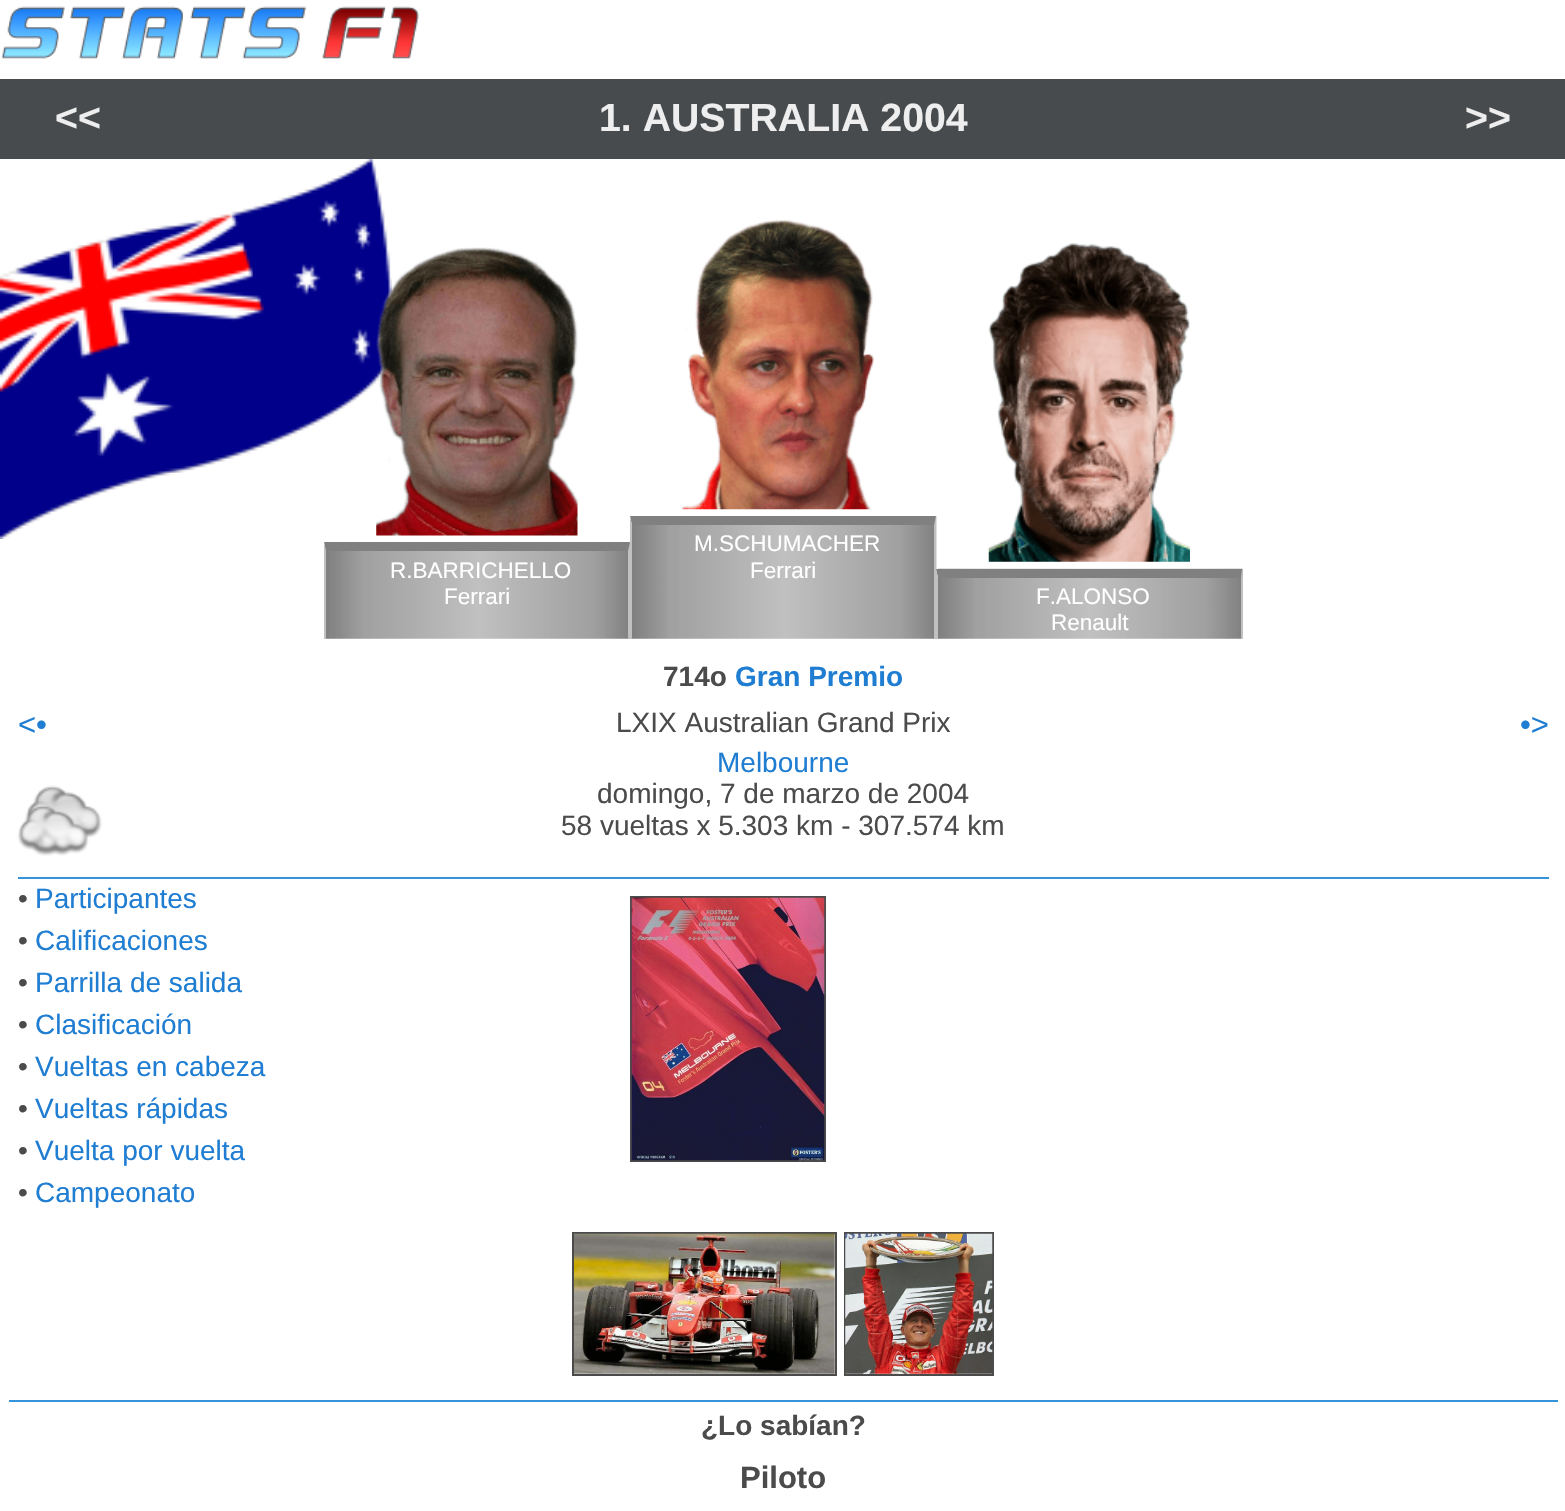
#include "include/core/SkBlurTypes.h"
#include "include/core/SkCanvas.h"
#include "include/core/SkData.h"
#include "include/core/SkFont.h"
#include "include/core/SkFontMgr.h"
#include "include/core/SkImage.h"
#include "include/core/SkMaskFilter.h"
#include "include/core/SkPaint.h"
#include "include/core/SkPathBuilder.h"
#include "include/core/SkTextBlob.h"
#include "include/effects/SkDashPathEffect.h"
#include "include/effects/SkGradientShader.h"
#include "include/utils/SkParsePath.h"

extern sk_sp<SkFontMgr> fontMgr;

void draw(SkCanvas* canvas) {
  SkPaint p;
  p.setAntiAlias(true);
  canvas->clear(SK_ColorWHITE);
  canvas->drawImageRect(SkImages::DeferredFromEncodedData(SkData::MakeFromFileName("images/1.png")), SkRect::MakeLTRB(1, 6, 419, 59), SkSamplingOptions());
  p.setColor(SkColorSetRGB(72, 75, 77));
  canvas->drawRect(SkRect::MakeLTRB(0, 79, 1565, 159), p);
  canvas->drawImageRect(SkImages::DeferredFromEncodedData(SkData::MakeFromFileName("images/2.png")), SkRect::MakeLTRB(0, 159, 392, 539), SkSamplingOptions());
  canvas->drawImageRect(SkImages::DeferredFromEncodedData(SkData::MakeFromFileName("images/3.png")), SkRect::MakeLTRB(682, 220, 874, 510), SkSamplingOptions());
  canvas->drawImageRect(SkImages::DeferredFromEncodedData(SkData::MakeFromFileName("images/4.png")), SkRect::MakeLTRB(631, 516, 937, 639), SkSamplingOptions());
  p.setColor(SkColorSetRGB(128, 128, 128));
  canvas->drawPath(SkPathBuilder().moveTo(630, 516).lineTo(936, 516).lineTo(934, 525).lineTo(632, 525).close().detach(), p);
  p.setColor(SkColorSetRGB(192, 192, 192));
  canvas->drawPath(SkPathBuilder().moveTo(936, 516).lineTo(936, 639).lineTo(934, 639).lineTo(934, 525).close().detach(), p);
  canvas->drawPath(SkPathBuilder().moveTo(630, 639).lineTo(630, 516).lineTo(632, 525).lineTo(632, 639).close().detach(), p);
  canvas->drawImageRect(SkImages::DeferredFromEncodedData(SkData::MakeFromFileName("images/5.png")), SkRect::MakeLTRB(376, 247, 578, 536), SkSamplingOptions());
  canvas->drawImageRect(SkImages::DeferredFromEncodedData(SkData::MakeFromFileName("images/6.png")), SkRect::MakeLTRB(325, 542, 630, 639), SkSamplingOptions());
  p.setColor(SkColorSetRGB(128, 128, 128));
  canvas->drawPath(SkPathBuilder().moveTo(324, 542).lineTo(630, 542).lineTo(628, 551).lineTo(326, 551).close().detach(), p);
  p.setColor(SkColorSetRGB(192, 192, 192));
  canvas->drawPath(SkPathBuilder().moveTo(630, 542).lineTo(630, 639).lineTo(628, 639).lineTo(628, 551).close().detach(), p);
  canvas->drawPath(SkPathBuilder().moveTo(324, 639).lineTo(324, 542).lineTo(326, 551).lineTo(326, 639).close().detach(), p);
  canvas->drawImageRect(SkImages::DeferredFromEncodedData(SkData::MakeFromFileName("images/7.png")), SkRect::MakeLTRB(988, 243, 1190, 562), SkSamplingOptions());
  canvas->drawImageRect(SkImages::DeferredFromEncodedData(SkData::MakeFromFileName("images/8.png")), SkRect::MakeLTRB(938, 568, 1243, 639), SkSamplingOptions());
  p.setColor(SkColorSetRGB(128, 128, 128));
  canvas->drawPath(SkPathBuilder().moveTo(936, 569).lineTo(1242, 569).lineTo(1241, 578).lineTo(938, 578).close().detach(), p);
  p.setColor(SkColorSetRGB(192, 192, 192));
  canvas->drawPath(SkPathBuilder().moveTo(1242, 569).lineTo(1242, 639).lineTo(1241, 639).lineTo(1241, 578).close().detach(), p);
  canvas->drawPath(SkPathBuilder().moveTo(936, 639).lineTo(936, 569).lineTo(938, 578).lineTo(938, 639).close().detach(), p);
  canvas->drawImageRect(SkImages::DeferredFromEncodedData(SkData::MakeFromFileName("images/9.png")), SkRect::MakeLTRB(17, 785, 102, 856), SkSamplingOptions());
  p.setColor(SkColorSetRGB(53, 147, 218));
  canvas->drawRect(SkRect::MakeLTRB(18, 877, 1549, 879), p);
  p.setStyle(SkPaint::kStroke_Style);
  p.setStrokeWidth(2);
  p.setColor(SkColorSetRGB(75, 75, 75));
  canvas->drawRect(SkRect::MakeLTRB(631, 897, 825, 1161), p);
  canvas->drawImageRect(SkImages::DeferredFromEncodedData(SkData::MakeFromFileName("images/10.png")), SkRect::MakeLTRB(631, 897, 825, 1161), SkSamplingOptions());
  canvas->drawRect(SkRect::MakeLTRB(573, 1233, 836, 1375), p);
  canvas->drawRect(SkRect::MakeLTRB(845, 1233, 993, 1375), p);
  canvas->drawImageRect(SkImages::DeferredFromEncodedData(SkData::MakeFromFileName("images/11.png")), SkRect::MakeLTRB(574, 1233, 835, 1374), SkSamplingOptions());
  canvas->drawImageRect(SkImages::DeferredFromEncodedData(SkData::MakeFromFileName("images/12.png")), SkRect::MakeLTRB(845, 1233, 993, 1374), SkSamplingOptions());
  p.setStyle(SkPaint::kFill_Style);
  p.setColor(SkColorSetRGB(53, 147, 218));
  canvas->drawRect(SkRect::MakeLTRB(9, 1400, 1558, 1402), p);
  SkFont font1(fontMgr->matchFamilyStyle("Liberation Sans", SkFontStyle::Bold()), 39.25f);
  font1.setSubpixel(true);
  p.setColor(SkColorSetRGB(238, 238, 238));
  canvas->drawString("<<", 55, 131, font1, p);
  canvas->drawString("1. AUSTRALIA 2004", 599, 131, font1, p);
  canvas->drawString(">>", 1465, 131, font1, p);
  SkFont font2(fontMgr->matchFamilyStyle("Liberation Sans", SkFontStyle::Normal()), 22.5f);
  font2.setSubpixel(true);
  p.setColor(SK_ColorWHITE);
  canvas->drawString("M.SCHUMACHER", 694, 551, font2, p);
  canvas->drawString("Ferrari", 750, 578, font2, p);
  canvas->drawString("R.BARRICHELLO", 390, 578, font2, p);
  canvas->drawString("Ferrari", 444, 604, font2, p);
  canvas->drawString("F.ALONSO", 1036, 604, font2, p);
  canvas->drawString("Renault", 1051, 630, font2, p);
  SkFont font3(fontMgr->matchFamilyStyle("Liberation Sans", SkFontStyle::Bold()), 28);
  font3.setSubpixel(true);
  p.setColor(SkColorSetRGB(75, 75, 75));
  canvas->drawString("714o", 663, 686, font3, p);
  p.setColor(SkColorSetRGB(31, 125, 210));
  canvas->drawString("Gran Premio", 735, 686, font3, p);
  SkFont font4(fontMgr->matchFamilyStyle("Liberation Sans", SkFontStyle::Normal()), 31);
  font4.setSubpixel(true);
  canvas->drawString("<•", 18, 735, font4, p);
  SkFont font5(fontMgr->matchFamilyStyle("Liberation Sans", SkFontStyle::Normal()), 28);
  font5.setSubpixel(true);
  p.setColor(SkColorSetRGB(75, 75, 75));
  canvas->drawString("LXIX Australian Grand Prix", 616, 732, font5, p);
  p.setColor(SkColorSetRGB(31, 125, 210));
  canvas->drawString("•>", 1520, 735, font4, p);
  canvas->drawString("Melbourne", 717, 772, font5, p);
  p.setColor(SkColorSetRGB(75, 75, 75));
  canvas->drawString("domingo, 7 de marzo de 2004", 597, 803, font5, p);
  canvas->drawString("58 vueltas x 5.303 km - 307.574 km", 561, 835, font5, p);
  canvas->drawString("•", 18, 908, font5, p);
  p.setColor(SkColorSetRGB(31, 125, 210));
  canvas->drawString("Participantes", 35, 908, font5, p);
  p.setColor(SkColorSetRGB(75, 75, 75));
  canvas->drawString("•", 18, 950, font5, p);
  p.setColor(SkColorSetRGB(31, 125, 210));
  canvas->drawString("Calificaciones", 35, 950, font5, p);
  p.setColor(SkColorSetRGB(75, 75, 75));
  canvas->drawString("•", 18, 992, font5, p);
  p.setColor(SkColorSetRGB(31, 125, 210));
  canvas->drawString("Parrilla de salida", 35, 992, font5, p);
  p.setColor(SkColorSetRGB(75, 75, 75));
  canvas->drawString("•", 18, 1034, font5, p);
  p.setColor(SkColorSetRGB(31, 125, 210));
  canvas->drawString("Clasificación", 35, 1034, font5, p);
  p.setColor(SkColorSetRGB(75, 75, 75));
  canvas->drawString("•", 18, 1076, font5, p);
  p.setColor(SkColorSetRGB(31, 125, 210));
  canvas->drawString("Vueltas en cabeza", 35, 1076, font5, p);
  p.setColor(SkColorSetRGB(75, 75, 75));
  canvas->drawString("•", 18, 1118, font5, p);
  p.setColor(SkColorSetRGB(31, 125, 210));
  canvas->drawString("Vueltas rápidas", 35, 1118, font5, p);
  p.setColor(SkColorSetRGB(75, 75, 75));
  canvas->drawString("•", 18, 1160, font5, p);
  p.setColor(SkColorSetRGB(31, 125, 210));
  canvas->drawString("Vuelta por vuelta", 35, 1160, font5, p);
  p.setColor(SkColorSetRGB(75, 75, 75));
  canvas->drawString("•", 18, 1202, font5, p);
  p.setColor(SkColorSetRGB(31, 125, 210));
  canvas->drawString("Campeonato", 35, 1202, font5, p);
  p.setColor(SkColorSetRGB(75, 75, 75));
  canvas->drawString("¿Lo sabían?", 701, 1435, font3, p);
  SkFont font6(fontMgr->matchFamilyStyle("Liberation Sans", SkFontStyle::Bold()), 31);
  font6.setSubpixel(true);
  canvas->drawString("Piloto", 740, 1488, font6, p);
}
